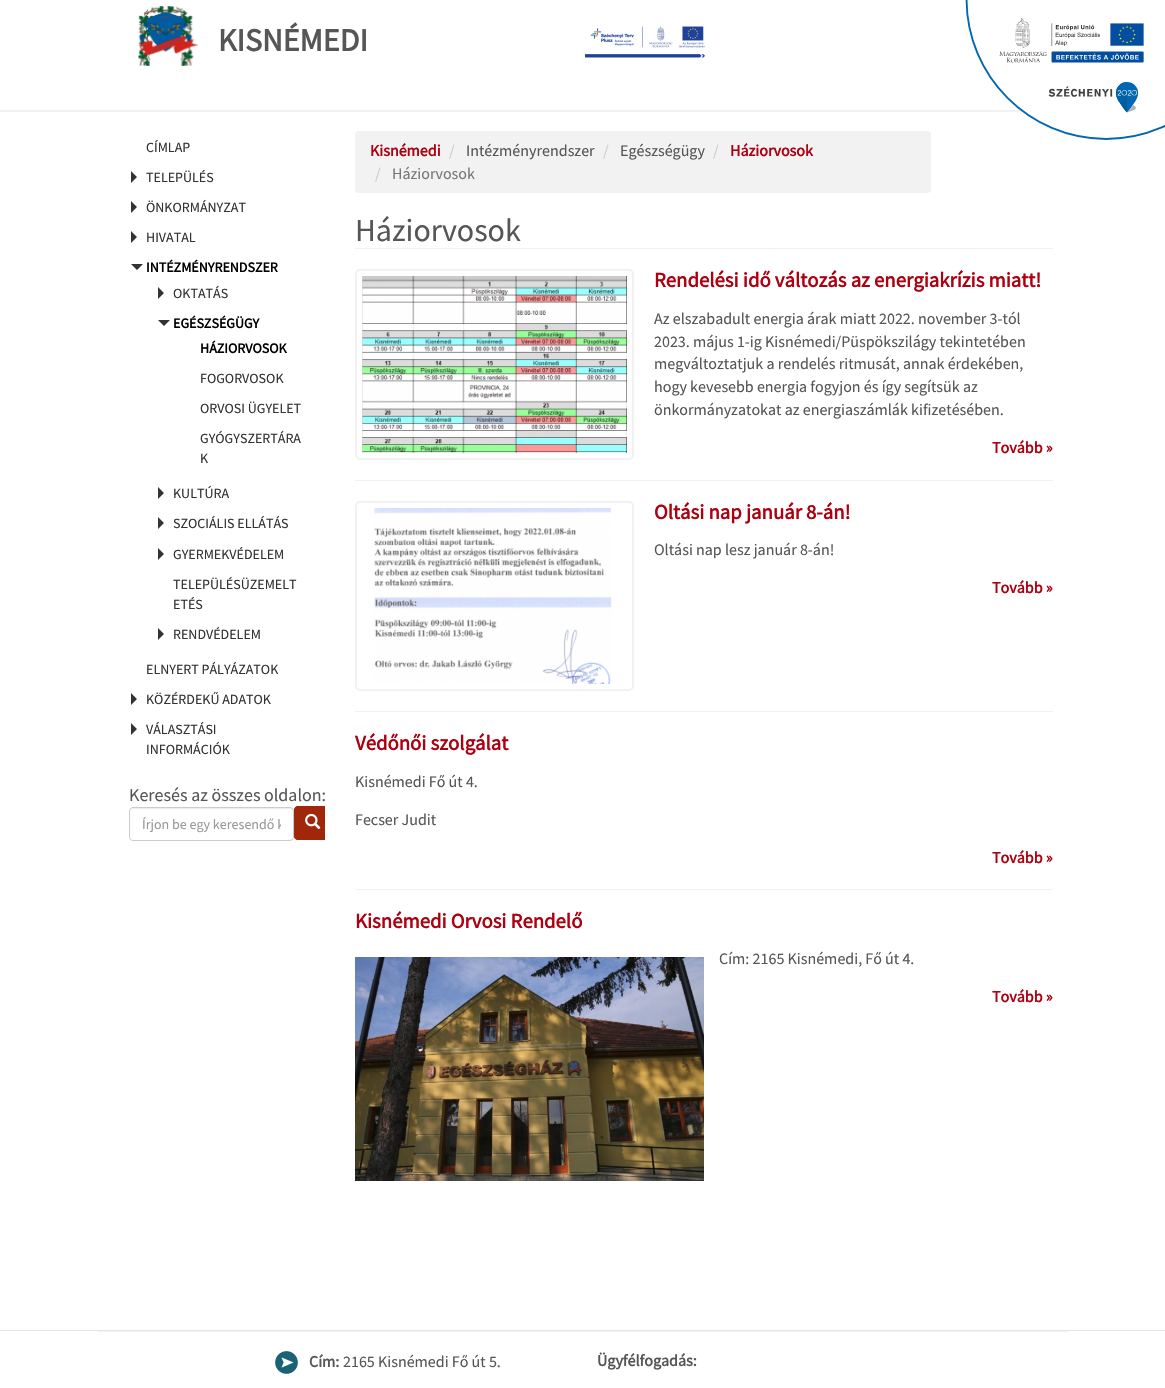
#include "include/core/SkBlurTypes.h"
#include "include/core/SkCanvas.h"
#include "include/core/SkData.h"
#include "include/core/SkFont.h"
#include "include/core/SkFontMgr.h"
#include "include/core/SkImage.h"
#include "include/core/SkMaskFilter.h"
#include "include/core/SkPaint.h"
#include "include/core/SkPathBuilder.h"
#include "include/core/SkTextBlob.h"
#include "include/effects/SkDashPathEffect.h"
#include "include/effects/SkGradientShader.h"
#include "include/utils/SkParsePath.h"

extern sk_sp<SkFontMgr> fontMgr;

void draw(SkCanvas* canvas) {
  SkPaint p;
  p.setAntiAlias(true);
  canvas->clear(SK_ColorWHITE);
  p.setColor(SkColorSetRGB(242, 242, 242));
  canvas->drawRect(SkRect::MakeLTRB(0, 110, 1023, 112), p);
  canvas->drawImageRect(SkImages::DeferredFromEncodedData(SkData::MakeFromFileName("images/1.png")), SkRect::MakeLTRB(138, 6, 198, 66), SkSamplingOptions());
  canvas->drawImageRect(SkImages::DeferredFromEncodedData(SkData::MakeFromFileName("images/2.png")), SkRect::MakeLTRB(585, 26, 705, 58), SkSamplingOptions());
  p.setColor(SkColorSetRGB(51, 51, 51));
  canvas->drawPath(SkPathBuilder().moveTo(131, 183).lineTo(131, 171).lineTo(137, 177).close().moveTo(131, 213).lineTo(131, 201).lineTo(137, 207).close().detach(), p);
  canvas->drawPath(SkPathBuilder().moveTo(131, 243).lineTo(131, 231).lineTo(137, 237).close().moveTo(131, 264).lineTo(143, 264).lineTo(137, 270).close().detach(), p);
  canvas->drawPath(SkPathBuilder().moveTo(158, 299).lineTo(158, 287).lineTo(164, 293).close().moveTo(158, 320).lineTo(170, 320).lineTo(164, 326).close().detach(), p);
  canvas->drawPath(SkPathBuilder().moveTo(158, 499).lineTo(158, 487).lineTo(164, 493).close().moveTo(158, 529).lineTo(158, 517).lineTo(164, 523).close().detach(), p);
  canvas->drawPath(SkPathBuilder().moveTo(158, 560).lineTo(158, 548).lineTo(164, 554).close().detach(), p);
  canvas->drawPath(SkPathBuilder().moveTo(158, 640).lineTo(158, 628).lineTo(164, 634).close().detach(), p);
  canvas->drawPath(SkPathBuilder().moveTo(131, 705).lineTo(131, 693).lineTo(137, 699).close().moveTo(131, 735).lineTo(131, 723).lineTo(137, 729).close().detach(), p);
  p.setColor(SkColorSetRGB(236, 236, 236));
  canvas->drawPath(SkPathBuilder().moveTo(133, 809).lineTo(290, 809).cubicTo(292, 809, 293, 810, 293, 812).cubicTo(293, 810, 292, 808, 290, 808).lineTo(133, 808).cubicTo(131, 808, 130, 810, 130, 812).cubicTo(130, 810, 131, 809, 133, 809).close().detach(), p);
  p.setStyle(SkPaint::kStroke_Style);
  p.setStrokeWidth(1);
  p.setColor(SkColorSetRGB(204, 204, 204));
  canvas->drawRoundRect(SkRect::MakeLTRB(129.5f, 807.5f, 293.5f, 840.5f), 3.5f, 3.5f, p);
  p.setStyle(SkPaint::kFill_Style);
  p.setColor(SkColorSetRGB(161, 39, 11));
  canvas->drawPath(SkPathBuilder().moveTo(298, 806).lineTo(325, 806).lineTo(325, 840).lineTo(298, 840).cubicTo(296, 840, 294, 838, 294, 836).lineTo(294, 810).cubicTo(294, 808, 296, 806, 298, 806).close().detach(), p);
  canvas->save();
  canvas->clipRect(SkRect::MakeLTRB(113, 131, 325, 862));
  p.setStyle(SkPaint::kStroke_Style);
  canvas->drawRoundRect(SkRect::MakeLTRB(294.5f, 806.5f, 331.5f, 839.5f), 3.5f, 3.5f, p);
  canvas->restore();
  canvas->drawImageRect(SkImages::DeferredFromEncodedData(SkData::MakeFromFileName("images/3.png")), SkRect::MakeLTRB(305, 813, 321, 829), SkSamplingOptions());
  p.setStyle(SkPaint::kFill_Style);
  p.setColor(SkColorSetRGB(242, 242, 242));
  canvas->drawRoundRect(SkRect::MakeLTRB(355, 131, 931, 193), 4, 4, p);
  canvas->drawRect(SkRect::MakeLTRB(355, 248, 1053, 249), p);
  canvas->drawRect(SkRect::MakeLTRB(355, 480, 1053, 481), p);
  p.setStyle(SkPaint::kStroke_Style);
  p.setStrokeWidth(2);
  canvas->drawRoundRect(SkRect::MakeLTRB(356, 270, 633, 459), 4, 4, p);
  canvas->drawImageRect(SkImages::DeferredFromEncodedData(SkData::MakeFromFileName("images/4.png")), SkRect::MakeLTRB(362, 276, 627, 453), SkSamplingOptions());
  p.setStyle(SkPaint::kFill_Style);
  canvas->drawRect(SkRect::MakeLTRB(355, 711, 1053, 712), p);
  p.setStyle(SkPaint::kStroke_Style);
  canvas->drawRoundRect(SkRect::MakeLTRB(356, 502, 633, 690), 4, 4, p);
  canvas->drawImageRect(SkImages::DeferredFromEncodedData(SkData::MakeFromFileName("images/5.png")), SkRect::MakeLTRB(374, 508, 612, 684), SkSamplingOptions());
  p.setStyle(SkPaint::kFill_Style);
  canvas->drawRect(SkRect::MakeLTRB(355, 889, 1053, 890), p);
  canvas->drawImageRect(SkImages::DeferredFromEncodedData(SkData::MakeFromFileName("images/6.png")), SkRect::MakeLTRB(355, 957, 704, 1181), SkSamplingOptions());
  p.setColor(SkColorSetRGB(229, 229, 229));
  canvas->drawRect(SkRect::MakeLTRB(0, 1330, 1165, 1331), p);
  p.setColor(SkColorSetRGB(242, 242, 242));
  canvas->drawRect(SkRect::MakeLTRB(98, 1331, 1068, 1332), p);
  canvas->drawImageRect(SkImages::DeferredFromEncodedData(SkData::MakeFromFileName("images/7.png")), SkRect::MakeLTRB(275, 1351, 298, 1374), SkSamplingOptions());
  canvas->drawImageRect(SkImages::DeferredFromEncodedData(SkData::MakeFromFileName("images/8.png")), SkRect::MakeLTRB(965, 0, 1165, 140), SkSamplingOptions());
  SkFont font1(fontMgr->matchFamilyStyle("Source Sans Pro", SkFontStyle::Bold()), 32);
  font1.setSubpixel(true);
  p.setColor(SkColorSetRGB(86, 86, 86));
  canvas->drawString("KISNÉMEDI", 218, 51, font1, p);
  SkFont font2(fontMgr->matchFamilyStyle("Source Sans Pro", SkFontStyle::Normal()), 14);
  font2.setSubpixel(true);
  p.setColor(SkColorSetRGB(51, 51, 51));
  canvas->drawString("CÍMLAP", 146, 152, font2, p);
  canvas->drawString("TELEPÜLÉS", 146, 182, font2, p);
  canvas->drawString("ÖNKORMÁNYZAT", 146, 212, font2, p);
  canvas->drawString("HIVATAL", 146, 242, font2, p);
  SkFont font3(fontMgr->matchFamilyStyle("Source Sans Pro", SkFontStyle::Bold()), 14);
  font3.setSubpixel(true);
  p.setColor(SK_ColorBLACK);
  canvas->drawString("INTÉZMÉNYRENDSZER", 146, 272, font3, p);
  p.setColor(SkColorSetRGB(51, 51, 51));
  canvas->drawString("OKTATÁS", 173, 298, font2, p);
  p.setColor(SK_ColorBLACK);
  canvas->drawString("EGÉSZSÉGÜGY", 173, 328, font3, p);
  canvas->drawString("HÁZIORVOSOK", 200, 353, font3, p);
  p.setColor(SkColorSetRGB(51, 51, 51));
  canvas->drawString("FOGORVOSOK", 200, 383, font2, p);
  canvas->drawString("ORVOSI ÜGYELET", 200, 413, font2, p);
  canvas->drawString("GYÓGYSZERTÁRA", 200, 443, font2, p);
  canvas->drawString("K", 200, 463, font2, p);
  canvas->drawString("KULTÚRA", 173, 498, font2, p);
  canvas->drawString("SZOCIÁLIS ELLÁTÁS", 173, 528, font2, p);
  canvas->drawString("GYERMEKVÉDELEM", 173, 559, font2, p);
  canvas->drawString("TELEPÜLÉSÜZEMELT", 173, 589, font2, p);
  canvas->drawString("ETÉS", 173, 609, font2, p);
  canvas->drawString("RENDVÉDELEM", 173, 639, font2, p);
  canvas->drawString("ELNYERT PÁLYÁZATOK", 146, 674, font2, p);
  canvas->drawString("KÖZÉRDEKŰ ADATOK", 146, 704, font2, p);
  canvas->drawString("VÁLASZTÁSI", 146, 734, font2, p);
  canvas->drawString("INFORMÁCIÓK", 146, 754, font2, p);
  SkFont font4(fontMgr->matchFamilyStyle("Source Sans Pro", SkFontStyle::Normal()), 18);
  font4.setSubpixel(true);
  p.setColor(SkColorSetRGB(86, 86, 86));
  canvas->drawString("Keresés az összes oldalon:", 129, 801, font4, p);
  canvas->save();
  canvas->clipRect(SkRect::MakeLTRB(142, 815, 281, 833));
  p.setColor(SkColorSetRGB(153, 153, 153));
  canvas->drawString("Írjon be egy keresendő k", 142, 829, font2, p);
  canvas->restore();
  SkFont font5(fontMgr->matchFamilyStyle("Source Sans Pro", SkFontStyle::Bold()), 16);
  font5.setSubpixel(true);
  p.setColor(SkColorSetRGB(173, 0, 16));
  canvas->drawString("Kisnémedi", 370, 156, font5, p);
  SkFont font6(fontMgr->matchFamilyStyle("Source Sans Pro", SkFontStyle::Normal()), 16);
  font6.setSubpixel(true);
  p.setColor(SkColorSetRGB(204, 204, 204));
  canvas->drawString("/", 449, 156, font6, p);
  p.setColor(SkColorSetRGB(86, 86, 86));
  canvas->drawString("Intézményrendszer", 466, 156, font6, p);
  p.setColor(SkColorSetRGB(204, 204, 204));
  canvas->drawString("/", 603, 156, font6, p);
  p.setColor(SkColorSetRGB(86, 86, 86));
  canvas->drawString("Egészségügy", 620, 156, font6, p);
  p.setColor(SkColorSetRGB(204, 204, 204));
  canvas->drawString("/", 713, 156, font6, p);
  p.setColor(SkColorSetRGB(173, 0, 16));
  canvas->drawString("Háziorvosok", 730, 156, font5, p);
  p.setColor(SkColorSetRGB(204, 204, 204));
  canvas->drawString("/", 375, 179, font6, p);
  p.setColor(SkColorSetRGB(119, 119, 119));
  canvas->drawString("Háziorvosok", 392, 179, font6, p);
  SkFont font7(fontMgr->matchFamilyStyle("Source Sans Pro", SkFontStyle::Normal()), 32);
  font7.setSubpixel(true);
  p.setColor(SkColorSetRGB(86, 86, 86));
  canvas->drawString("Háziorvosok", 355, 241, font7, p);
  SkFont font8(fontMgr->matchFamilyStyle("Source Sans Pro", SkFontStyle::Bold()), 20.75f);
  font8.setSubpixel(true);
  p.setColor(SkColorSetRGB(173, 0, 16));
  canvas->drawString("Rendelési idő változás az energiakrízis miatt!", 654, 287, font8, p);
  p.setColor(SkColorSetRGB(86, 86, 86));
  canvas->drawString("Az elszabadult energia árak miatt 2022. november 3-tól", 654, 324, font6, p);
  canvas->drawString("2023. május 1-ig Kisnémedi/Püspökszilágy tekintetében", 654, 347, font6, p);
  canvas->drawString("megváltoztatjuk a rendelés ritmusát, annak érdekében,", 654, 369, font6, p);
  canvas->drawString("hogy kevesebb energia fogyjon és így segítsük az", 654, 392, font6, p);
  canvas->drawString("önkormányzatokat az energiaszámlák kifizetésében.", 654, 415, font6, p);
  p.setColor(SkColorSetRGB(173, 0, 16));
  canvas->drawString("Tovább »", 992, 453, font5, p);
  canvas->drawString("Oltási nap január 8-án!", 654, 519, font8, p);
  p.setColor(SkColorSetRGB(86, 86, 86));
  canvas->drawString("Oltási nap lesz január 8-án!", 654, 555, font6, p);
  p.setColor(SkColorSetRGB(173, 0, 16));
  canvas->drawString("Tovább »", 992, 593, font5, p);
  canvas->drawString("Védőnői szolgálat", 355, 750, font8, p);
  p.setColor(SkColorSetRGB(86, 86, 86));
  canvas->drawString("Kisnémedi Fő út 4.", 355, 787, font6, p);
  canvas->drawString("Fecser Judit", 355, 825, font6, p);
  p.setColor(SkColorSetRGB(173, 0, 16));
  canvas->drawString("Tovább »", 992, 863, font5, p);
  canvas->drawString("Kisnémedi Orvosi Rendelő", 355, 928, font8, p);
  p.setColor(SkColorSetRGB(86, 86, 86));
  canvas->drawString("Cím: 2165 Kisnémedi, Fő út 4.", 719, 964, font6, p);
  p.setColor(SkColorSetRGB(173, 0, 16));
  canvas->drawString("Tovább »", 992, 1002, font5, p);
  p.setColor(SkColorSetRGB(86, 86, 86));
  canvas->drawString("Cím:", 309, 1367, font5, p);
  canvas->drawString("2165 Kisnémedi Fő út 5.", 343, 1367, font6, p);
  canvas->drawString("Ügyfélfogadás:", 597, 1366, font5, p);
}
